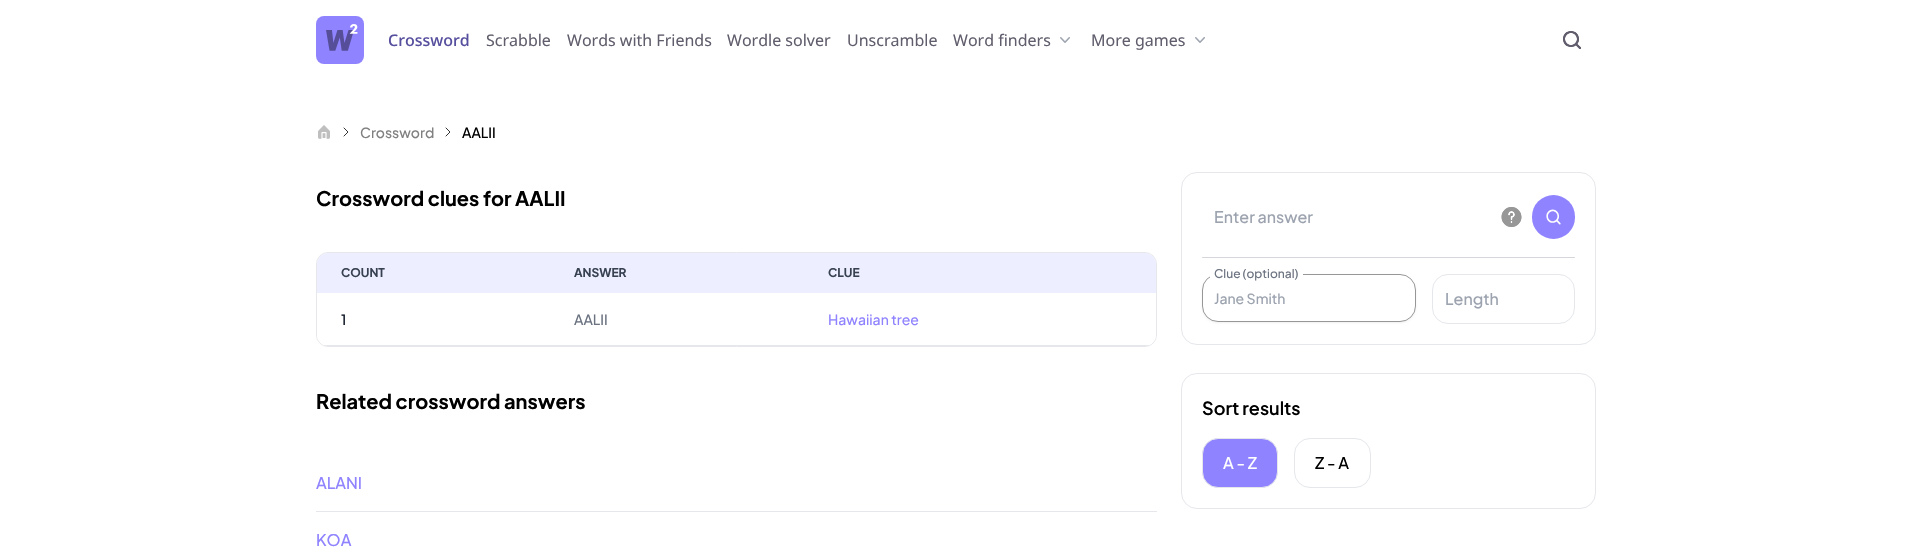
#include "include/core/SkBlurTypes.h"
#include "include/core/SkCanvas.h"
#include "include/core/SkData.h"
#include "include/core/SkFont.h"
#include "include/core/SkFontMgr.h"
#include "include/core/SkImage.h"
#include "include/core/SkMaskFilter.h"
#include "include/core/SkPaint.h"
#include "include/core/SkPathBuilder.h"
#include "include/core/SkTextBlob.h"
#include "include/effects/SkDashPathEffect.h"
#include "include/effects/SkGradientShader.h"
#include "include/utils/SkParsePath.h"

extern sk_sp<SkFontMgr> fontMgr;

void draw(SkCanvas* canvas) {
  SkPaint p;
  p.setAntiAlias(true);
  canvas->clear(SK_ColorWHITE);
  canvas->drawImageRect(SkImages::DeferredFromEncodedData(SkData::MakeFromFileName("images/1.png")), SkRect::MakeLTRB(316, 16, 364, 64), SkSamplingOptions());
  canvas->drawImageRect(SkImages::DeferredFromEncodedData(SkData::MakeFromFileName("images/2.png")), SkRect::MakeLTRB(1060, 37, 1070, 43), SkSamplingOptions());
  canvas->drawImageRect(SkImages::DeferredFromEncodedData(SkData::MakeFromFileName("images/2.png")), SkRect::MakeLTRB(1195, 37, 1205, 43), SkSamplingOptions());
  canvas->drawImageRect(SkImages::DeferredFromEncodedData(SkData::MakeFromFileName("images/3.png")), SkRect::MakeLTRB(1563, 31, 1581, 49), SkSamplingOptions());
  canvas->drawImageRect(SkImages::DeferredFromEncodedData(SkData::MakeFromFileName("images/4.png")), SkRect::MakeLTRB(318, 125, 330, 139), SkSamplingOptions());
  p.setStyle(SkPaint::kStroke_Style);
  p.setStrokeWidth(0.8f);
  p.setStrokeCap(SkPaint::kRound_Cap);
  p.setStrokeJoin(SkPaint::kRound_Join);
  p.setColor(SK_ColorBLACK);
  canvas->drawPath(SkPathBuilder().moveTo(344, 128).lineTo(348, 132).lineTo(344, 136).detach(), p);
  canvas->drawPath(SkPathBuilder().moveTo(446, 128).lineTo(450, 132).lineTo(446, 136).detach(), p);
  p.setStrokeWidth(1);
  p.setStrokeCap(SkPaint::kButt_Cap);
  p.setStrokeJoin(SkPaint::kMiter_Join);
  p.setColor(SkColorSetRGB(229, 231, 235));
  canvas->drawRoundRect(SkRect::MakeLTRB(316.5f, 252.5f, 1156.5f, 346.5f), 11.5f, 11.5f, p);
  p.setStyle(SkPaint::kFill_Style);
  p.setColor(SkColorSetRGB(237, 238, 255));
  canvas->drawPath(SkPathBuilder().moveTo(328, 253).lineTo(1145, 253).cubicTo(1151, 253, 1156, 258, 1156, 264).lineTo(1156, 293).lineTo(317, 293).lineTo(317, 264).cubicTo(317, 258, 322, 253, 328, 253).close().detach(), p);
  canvas->save();
  canvas->clipPath(SkPathBuilder().moveTo(328, 253).lineTo(1145, 253).cubicTo(1151, 253, 1156, 258, 1156, 264).lineTo(1156, 335).cubicTo(1156, 341, 1151, 346, 1145, 346).lineTo(328, 346).cubicTo(322, 346, 317, 341, 317, 335).lineTo(317, 264).cubicTo(317, 258, 322, 253, 328, 253).close().detach(), true);
  p.setColor(SK_ColorWHITE);
  canvas->drawRect(SkRect::MakeLTRB(317, 293, 1156, 345), p);
  p.setColor(SkColorSetRGB(229, 231, 235));
  canvas->drawRect(SkRect::MakeLTRB(317, 345, 1156, 346), p);
  canvas->restore();
  canvas->drawRect(SkRect::MakeLTRB(316, 511, 1157, 512), p);
  p.setStyle(SkPaint::kStroke_Style);
  canvas->drawRoundRect(SkRect::MakeLTRB(1181.5f, 172.5f, 1595.5f, 344.5f), 15.5f, 15.5f, p);
  canvas->drawImageRect(SkImages::DeferredFromEncodedData(SkData::MakeFromFileName("images/5.png")), SkRect::MakeLTRB(1501, 207, 1522, 227), SkSamplingOptions());
  p.setStyle(SkPaint::kFill_Style);
  p.setColor(SkColorSetRGB(143, 131, 255));
  canvas->drawRoundRect(SkRect::MakeLTRB(1532, 195, 1575, 239), 21.5f, 21.5f, p);
  canvas->drawImageRect(SkImages::DeferredFromEncodedData(SkData::MakeFromFileName("images/6.png")), SkRect::MakeLTRB(1546, 209, 1561, 225), SkSamplingOptions());
  p.setColor(SkColorSetRGB(215, 213, 219));
  canvas->drawRoundRect(SkRect::MakeLTRB(1202, 257, 1575, 258), 0.5f, 0.5f, p);
  p.setColor(SkColorSetARGB(13, 0, 0, 0));
  p.setMaskFilter(SkMaskFilter::MakeBlur(kNormal_SkBlurStyle, 1));
  canvas->drawRoundRect(SkRect::MakeLTRB(1202, 275, 1416, 323), 16, 16, p);
  p.setMaskFilter(nullptr);
  p.setColor(SK_ColorWHITE);
  canvas->drawRoundRect(SkRect::MakeLTRB(1202.5f, 274.5f, 1415.5f, 321.5f), 15.5f, 15.5f, p);
  p.setStyle(SkPaint::kStroke_Style);
  p.setColor(SkColorSetRGB(151, 151, 151));
  canvas->drawRoundRect(SkRect::MakeLTRB(1202.5f, 274.5f, 1415.5f, 321.5f), 15.5f, 15.5f, p);
  p.setStyle(SkPaint::kFill_Style);
  p.setColor(SK_ColorWHITE);
  canvas->drawRect(SkRect::MakeLTRB(1210, 274, 1303, 278), p);
  p.setStyle(SkPaint::kStroke_Style);
  p.setColor(SkColorSetRGB(229, 231, 235));
  canvas->drawRoundRect(SkRect::MakeLTRB(1432.5f, 274.5f, 1574.5f, 323.5f), 15.5f, 15.5f, p);
  canvas->drawRoundRect(SkRect::MakeLTRB(1181.5f, 373.5f, 1595.5f, 508.5f), 15.5f, 15.5f, p);
  p.setStyle(SkPaint::kFill_Style);
  p.setColor(SkColorSetRGB(143, 131, 255));
  canvas->drawRoundRect(SkRect::MakeLTRB(1202.5f, 438.5f, 1277.5f, 487.5f), 15.5f, 15.5f, p);
  p.setStyle(SkPaint::kStroke_Style);
  p.setColor(SkColorSetRGB(229, 231, 235));
  canvas->drawRoundRect(SkRect::MakeLTRB(1202.5f, 438.5f, 1277.5f, 487.5f), 15.5f, 15.5f, p);
  canvas->drawRoundRect(SkRect::MakeLTRB(1294.5f, 438.5f, 1370.5f, 487.5f), 15.5f, 15.5f, p);
  SkFont font1(fontMgr->matchFamilyStyle("Noto Sans", SkFontStyle(500, SkFontStyle::kNormal_Width, SkFontStyle::kUpright_Slant)), 16);
  font1.setSubpixel(true);
  p.setStyle(SkPaint::kFill_Style);
  p.setColor(SkColorSetRGB(86, 79, 158));
  canvas->drawString("Crossword", 388, 46, font1, p);
  SkFont font2(fontMgr->matchFamilyStyle("Noto Sans", SkFontStyle::Normal()), 16);
  font2.setSubpixel(true);
  p.setColor(SkColorSetRGB(97, 93, 108));
  canvas->drawString("Scrabble", 486, 46, font2, p);
  canvas->drawString("Words with Friends", 567, 46, font2, p);
  canvas->drawString("Wordle solver", 727, 46, font2, p);
  canvas->drawString("Unscramble", 847, 46, font2, p);
  canvas->drawString("Word finders", 953, 46, font2, p);
  canvas->drawString("More games", 1091, 46, font2, p);
  SkFont font3(fontMgr->matchFamilyStyle("Plus Jakarta Sans", SkFontStyle(500, SkFontStyle::kNormal_Width, SkFontStyle::kUpright_Slant)), 14);
  font3.setSubpixel(true);
  p.setColor(SkColorSetRGB(128, 128, 128));
  canvas->drawString("Crossword", 360, 138, font3, p);
  p.setColor(SK_ColorBLACK);
  canvas->drawString("AALII", 462, 138, font3, p);
  SkFont font4(fontMgr->matchFamilyStyle("Plus Jakarta Sans", SkFontStyle::Bold()), 20);
  font4.setSubpixel(true);
  canvas->drawString("Crossword clues for AALII", 316, 206, font4, p);
  SkFont font5(fontMgr->matchFamilyStyle("Plus Jakarta Sans", SkFontStyle::Bold()), 12);
  font5.setSubpixel(true);
  p.setColor(SkColorSetRGB(55, 65, 81));
  canvas->drawString("COUNT", 341, 277, font5, p);
  canvas->drawString("ANSWER", 574, 277, font5, p);
  canvas->drawString("CLUE", 828, 277, font5, p);
  p.setColor(SkColorSetRGB(17, 24, 39));
  canvas->drawString("1", 341, 325, font3, p);
  p.setColor(SkColorSetRGB(107, 114, 128));
  canvas->drawString("AALII", 574, 325, font3, p);
  p.setColor(SkColorSetRGB(143, 131, 255));
  canvas->drawString("Hawaiian tree", 828, 325, font3, p);
  p.setColor(SK_ColorBLACK);
  canvas->drawString("Related crossword answers", 316, 409, font4, p);
  SkFont font6(fontMgr->matchFamilyStyle("Plus Jakarta Sans", SkFontStyle(500, SkFontStyle::kNormal_Width, SkFontStyle::kUpright_Slant)), 16);
  font6.setSubpixel(true);
  p.setColor(SkColorSetRGB(143, 131, 255));
  canvas->drawString("ALANI", 316, 489, font6, p);
  canvas->drawString("KOA", 316, 546, font6, p);
  p.setColor(SkColorSetRGB(156, 163, 175));
  canvas->drawString("Enter answer", 1214, 223, font6, p);
  SkFont font7(fontMgr->matchFamilyStyle("Plus Jakarta Sans", SkFontStyle(500, SkFontStyle::kNormal_Width, SkFontStyle::kUpright_Slant)), 12);
  font7.setSubpixel(true);
  p.setColor(SkColorSetRGB(107, 114, 128));
  canvas->drawString("Clue (optional)", 1214, 278, font7, p);
  p.setColor(SkColorSetRGB(156, 163, 175));
  canvas->drawString("Jane Smith", 1214, 304, font3, p);
  canvas->drawString("Length", 1445, 305, font6, p);
  SkFont font8(fontMgr->matchFamilyStyle("Plus Jakarta Sans", SkFontStyle(600, SkFontStyle::kNormal_Width, SkFontStyle::kUpright_Slant)), 18);
  font8.setSubpixel(true);
  p.setColor(SK_ColorBLACK);
  canvas->drawString("Sort results", 1202, 415, font8, p);
  p.setColor(SK_ColorWHITE);
  canvas->drawString("A - Z", 1223, 469, font6, p);
  p.setColor(SK_ColorBLACK);
  canvas->drawString("Z - A", 1315, 469, font6, p);
}
